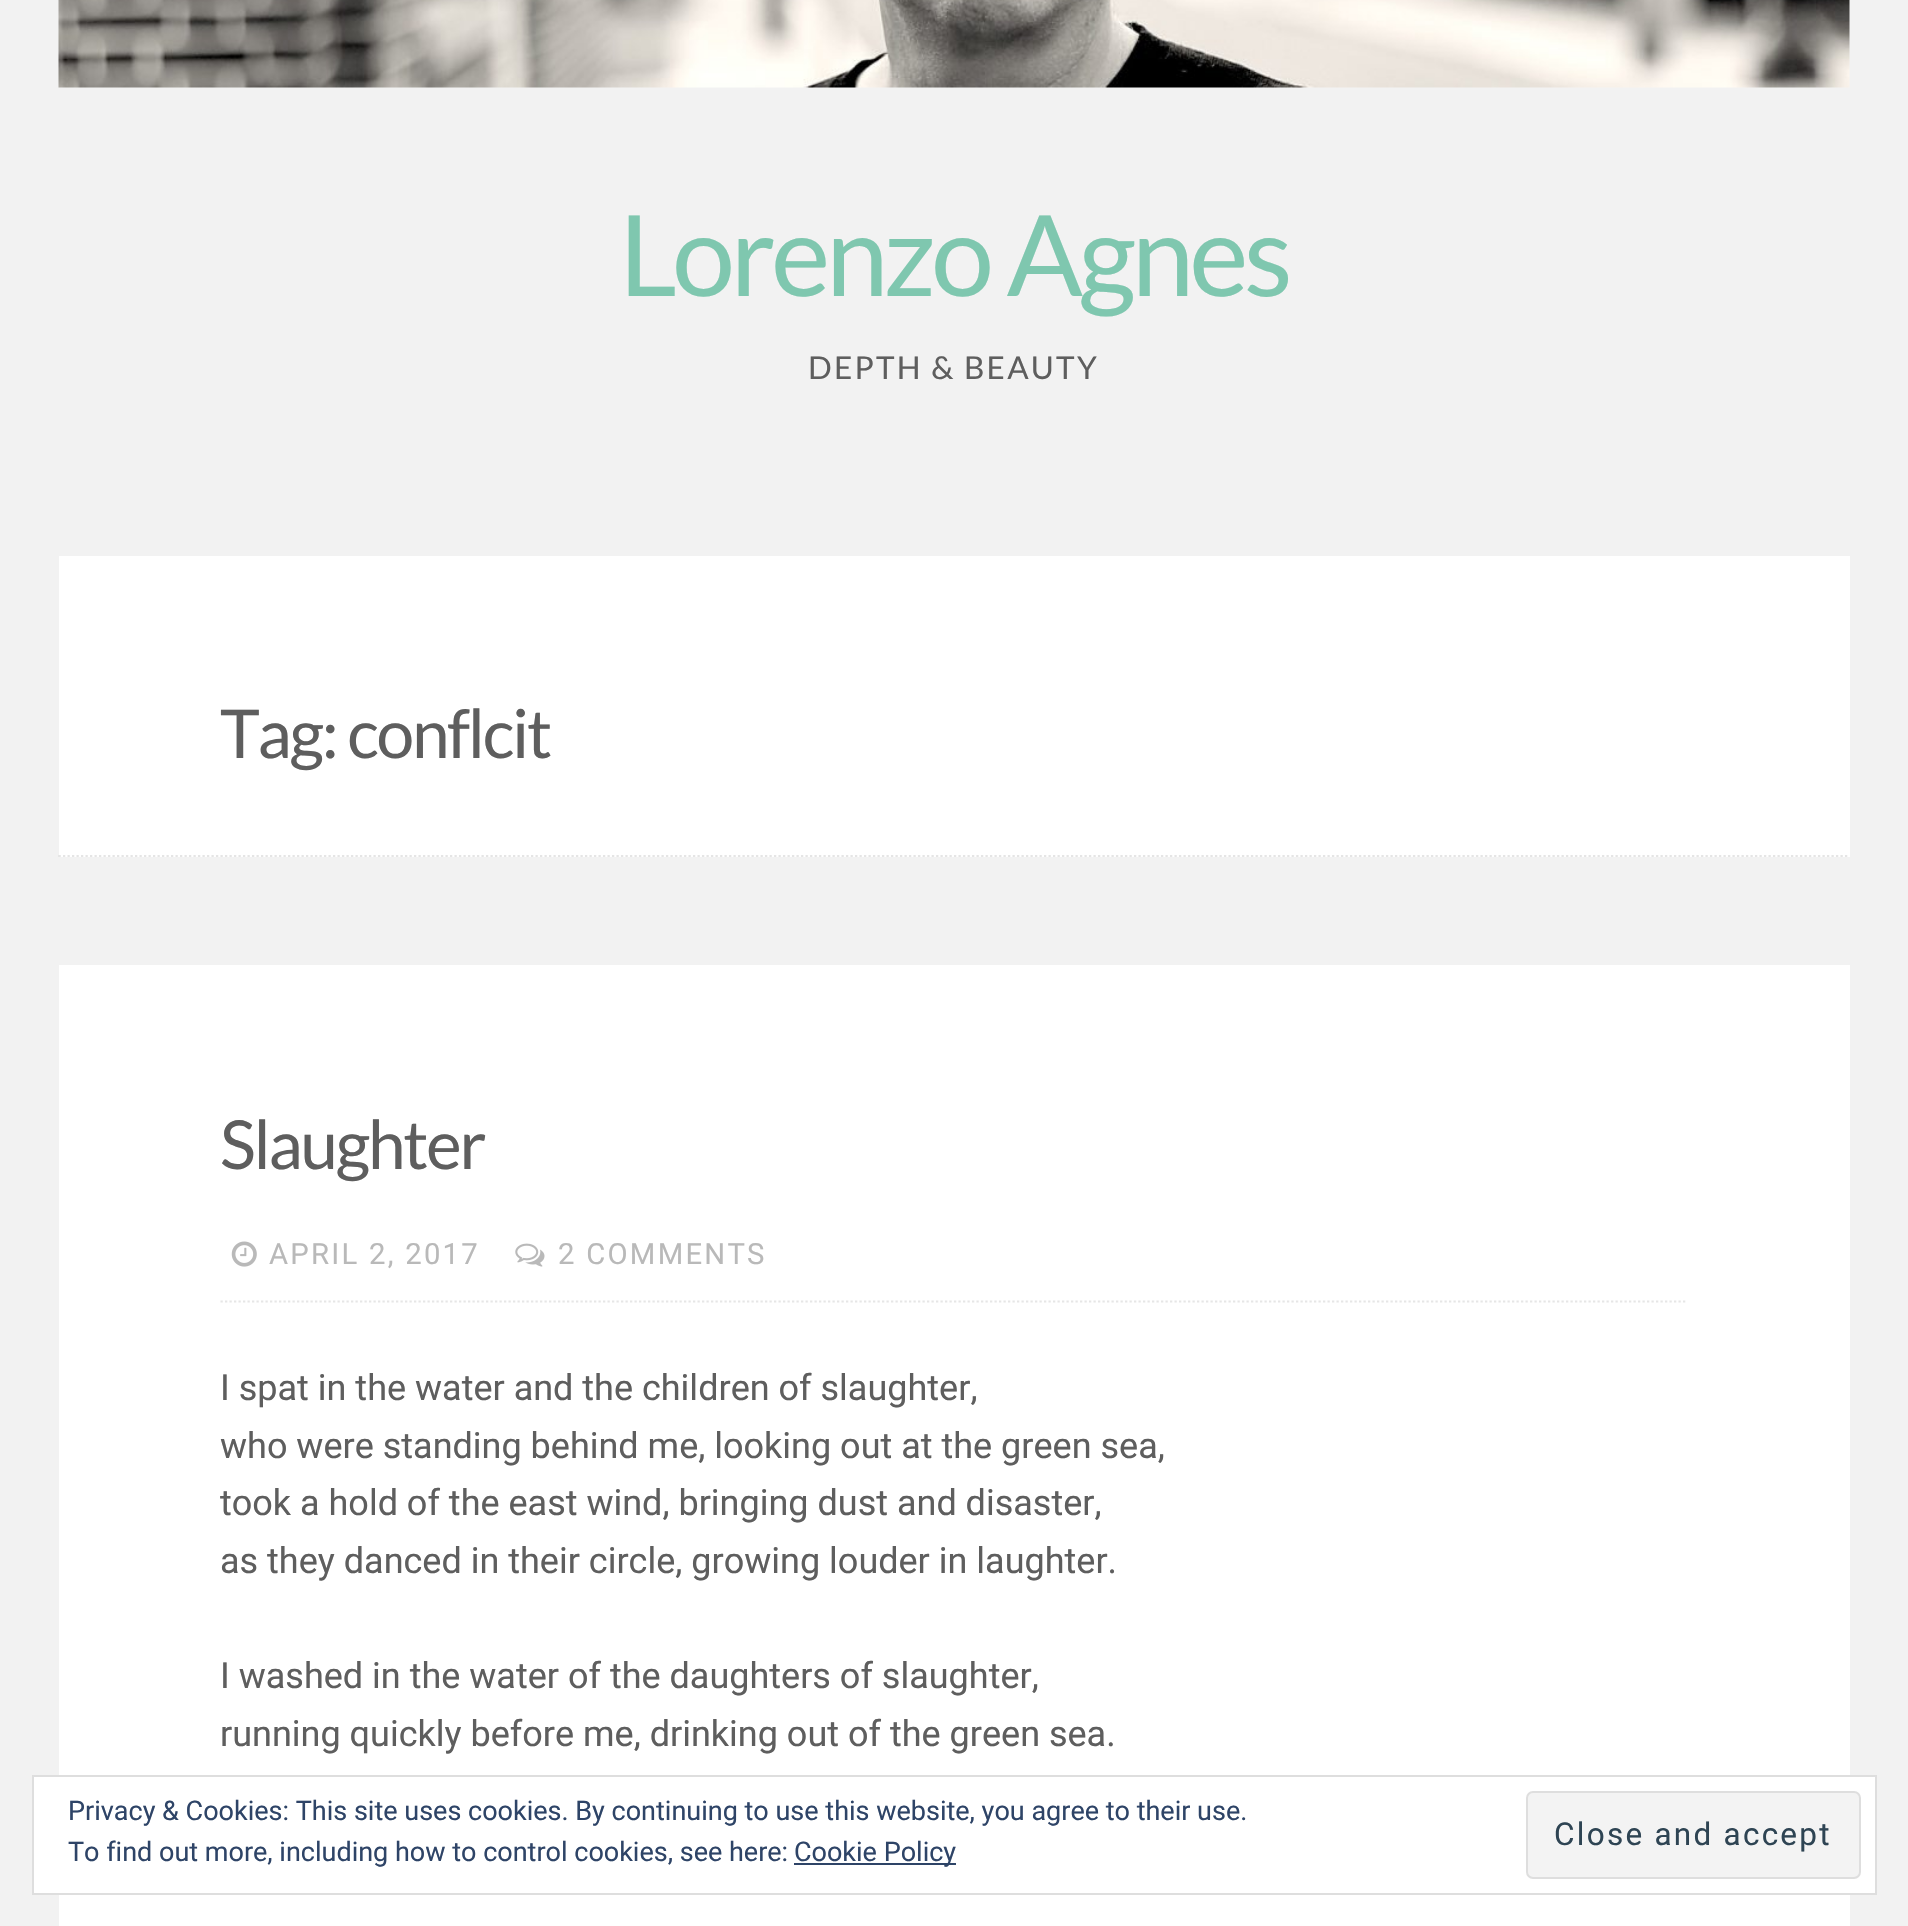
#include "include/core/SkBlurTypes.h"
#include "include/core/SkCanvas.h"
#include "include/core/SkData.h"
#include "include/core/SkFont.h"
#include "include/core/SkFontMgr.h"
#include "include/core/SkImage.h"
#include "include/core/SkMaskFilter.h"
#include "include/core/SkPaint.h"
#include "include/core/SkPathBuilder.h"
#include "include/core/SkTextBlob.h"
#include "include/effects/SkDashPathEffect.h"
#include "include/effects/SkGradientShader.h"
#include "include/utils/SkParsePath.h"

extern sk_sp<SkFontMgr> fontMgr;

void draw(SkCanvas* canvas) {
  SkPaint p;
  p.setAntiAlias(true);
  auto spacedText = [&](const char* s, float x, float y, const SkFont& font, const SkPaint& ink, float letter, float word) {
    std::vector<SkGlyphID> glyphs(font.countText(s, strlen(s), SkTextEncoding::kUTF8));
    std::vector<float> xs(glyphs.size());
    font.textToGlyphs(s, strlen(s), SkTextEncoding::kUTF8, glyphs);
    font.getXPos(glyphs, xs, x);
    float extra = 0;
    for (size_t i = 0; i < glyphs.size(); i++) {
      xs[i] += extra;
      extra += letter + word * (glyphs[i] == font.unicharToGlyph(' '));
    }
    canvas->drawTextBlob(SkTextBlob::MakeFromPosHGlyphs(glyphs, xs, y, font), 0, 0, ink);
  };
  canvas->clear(SkColorSetRGB(242, 242, 242));
  canvas->drawImageRect(SkImages::DeferredFromEncodedData(SkData::MakeFromFileName("images/1.png")), SkRect::MakeLTRB(58, 0, 1850, 88), SkSamplingOptions());
  p.setColor(SK_ColorWHITE);
  canvas->drawRect(SkRect::MakeLTRB(59, 556, 1850, 857), p);
  p.setStyle(SkPaint::kStroke_Style);
  p.setStrokeWidth(2.2f);
  p.setColor(SkColorSetARGB(26, 0, 0, 0));
  p.setPathEffect(SkDashPathEffect::Make({{2.25f, 2.25f}}, 0));
  canvas->drawPath(SkPathBuilder().moveTo(58.5f, 856).lineTo(1849.5f, 856).detach(), p);
  p.setPathEffect(nullptr);
  p.setStyle(SkPaint::kFill_Style);
  p.setColor(SK_ColorWHITE);
  canvas->drawRect(SkRect::MakeLTRB(59, 965, 1850, 1926), p);
  p.setStyle(SkPaint::kStroke_Style);
  p.setColor(SkColorSetRGB(230, 230, 230));
  p.setPathEffect(SkDashPathEffect::Make({{2.25f, 2.25f}}, 0));
  canvas->drawPath(SkPathBuilder().moveTo(220.5f, 1301.5f).lineTo(1687.5f, 1301.5f).detach(), p);
  p.setPathEffect(nullptr);
  canvas->drawImageRect(SkImages::DeferredFromEncodedData(SkData::MakeFromFileName("images/2.png")), SkRect::MakeLTRB(231, 1241, 257, 1267), SkSamplingOptions());
  canvas->drawImageRect(SkImages::DeferredFromEncodedData(SkData::MakeFromFileName("images/3.png")), SkRect::MakeLTRB(515, 1243, 545, 1267), SkSamplingOptions());
  p.setStyle(SkPaint::kFill_Style);
  p.setColor(SK_ColorWHITE);
  canvas->drawRect(SkRect::MakeLTRB(33, 1776, 1876, 1894), p);
  p.setStyle(SkPaint::kStroke_Style);
  p.setStrokeWidth(2);
  p.setColor(SkColorSetRGB(222, 222, 222));
  canvas->drawRect(SkRect::MakeLTRB(33, 1776, 1876, 1894), p);
  p.setStyle(SkPaint::kFill_Style);
  p.setColor(SkColorSetRGB(46, 68, 103));
  canvas->drawRect(SkRect::MakeLTRB(794, 1863, 956, 1865), p);
  p.setColor(SkColorSetRGB(243, 243, 243));
  canvas->drawRoundRect(SkRect::MakeLTRB(1527, 1792, 1860, 1878), 6, 6, p);
  p.setStyle(SkPaint::kStroke_Style);
  p.setColor(SkColorSetRGB(222, 222, 222));
  canvas->drawRoundRect(SkRect::MakeLTRB(1527, 1792, 1860, 1878), 6, 6, p);
  SkFont font1(fontMgr->matchFamilyStyle("Lato", SkFontStyle::Normal()), 112.5f);
  font1.setSubpixel(true);
  p.setStyle(SkPaint::kFill_Style);
  p.setColor(SkColorSetRGB(127, 199, 175));
  spacedText("Lorenzo Agnes", 619, 296, font1, p, -4.5f, 0);
  SkFont font2(fontMgr->matchFamilyStyle("Lato", SkFontStyle::Normal()), 31.5f);
  font2.setSubpixel(true);
  p.setColor(SkColorSetRGB(94, 94, 94));
  spacedText("DEPTH & BEAUTY", 808, 379, font2, p, 2.25f, 0);
  SkFont font3(fontMgr->matchFamilyStyle("Lato", SkFontStyle::Normal()), 67.5f);
  font3.setSubpixel(true);
  spacedText("Tag: conflcit", 220, 758, font3, p, -2.25f, 0);
  spacedText("Slaughter", 220, 1169, font3, p, -2.25f, 0);
  SkFont font4(fontMgr->matchFamilyStyle("Roboto", SkFontStyle::Normal()), 29.25f);
  font4.setSubpixel(true);
  p.setColor(SkColorSetRGB(185, 185, 185));
  spacedText("APRIL 2, 2017", 269, 1264, font4, p, 2.25f, 0);
  spacedText("2 COMMENTS", 558, 1264, font4, p, 2.25f, 0);
  SkFont font5(fontMgr->matchFamilyStyle("Roboto", SkFontStyle::Normal()), 36);
  font5.setSubpixel(true);
  p.setColor(SkColorSetRGB(94, 94, 94));
  canvas->drawString("I spat in the water and the children of slaughter,", 220, 1400, font5, p);
  canvas->drawString("who were standing behind me, looking out at the green sea,", 220, 1458, font5, p);
  canvas->drawString("took a hold of the east wind, bringing dust and disaster,", 220, 1515, font5, p);
  canvas->drawString("as they danced in their circle, growing louder in laughter.", 220, 1573, font5, p);
  canvas->drawString("I washed in the water of the daughters of slaughter,", 220, 1688, font5, p);
  canvas->drawString("running quickly before me, drinking out of the green sea.", 220, 1746, font5, p);
  SkFont font6(fontMgr->matchFamilyStyle("Roboto", SkFontStyle::Normal()), 27);
  font6.setSubpixel(true);
  p.setColor(SkColorSetRGB(46, 68, 103));
  canvas->drawString("Privacy & Cookies: This site uses cookies. By continuing to use this website, you agree to their use.", 68, 1820, font6, p);
  canvas->drawString("To find out more, including how to control cookies, see here:", 68, 1861, font6, p);
  canvas->drawString("Cookie Policy", 794, 1861, font6, p);
  SkFont font7(fontMgr->matchFamilyStyle("Roboto", SkFontStyle::Normal()), 31.5f);
  font7.setSubpixel(true);
  p.setColor(SkColorSetRGB(46, 68, 83));
  spacedText("Close and accept", 1554, 1845, font7, p, 2.25f, 0);
}
